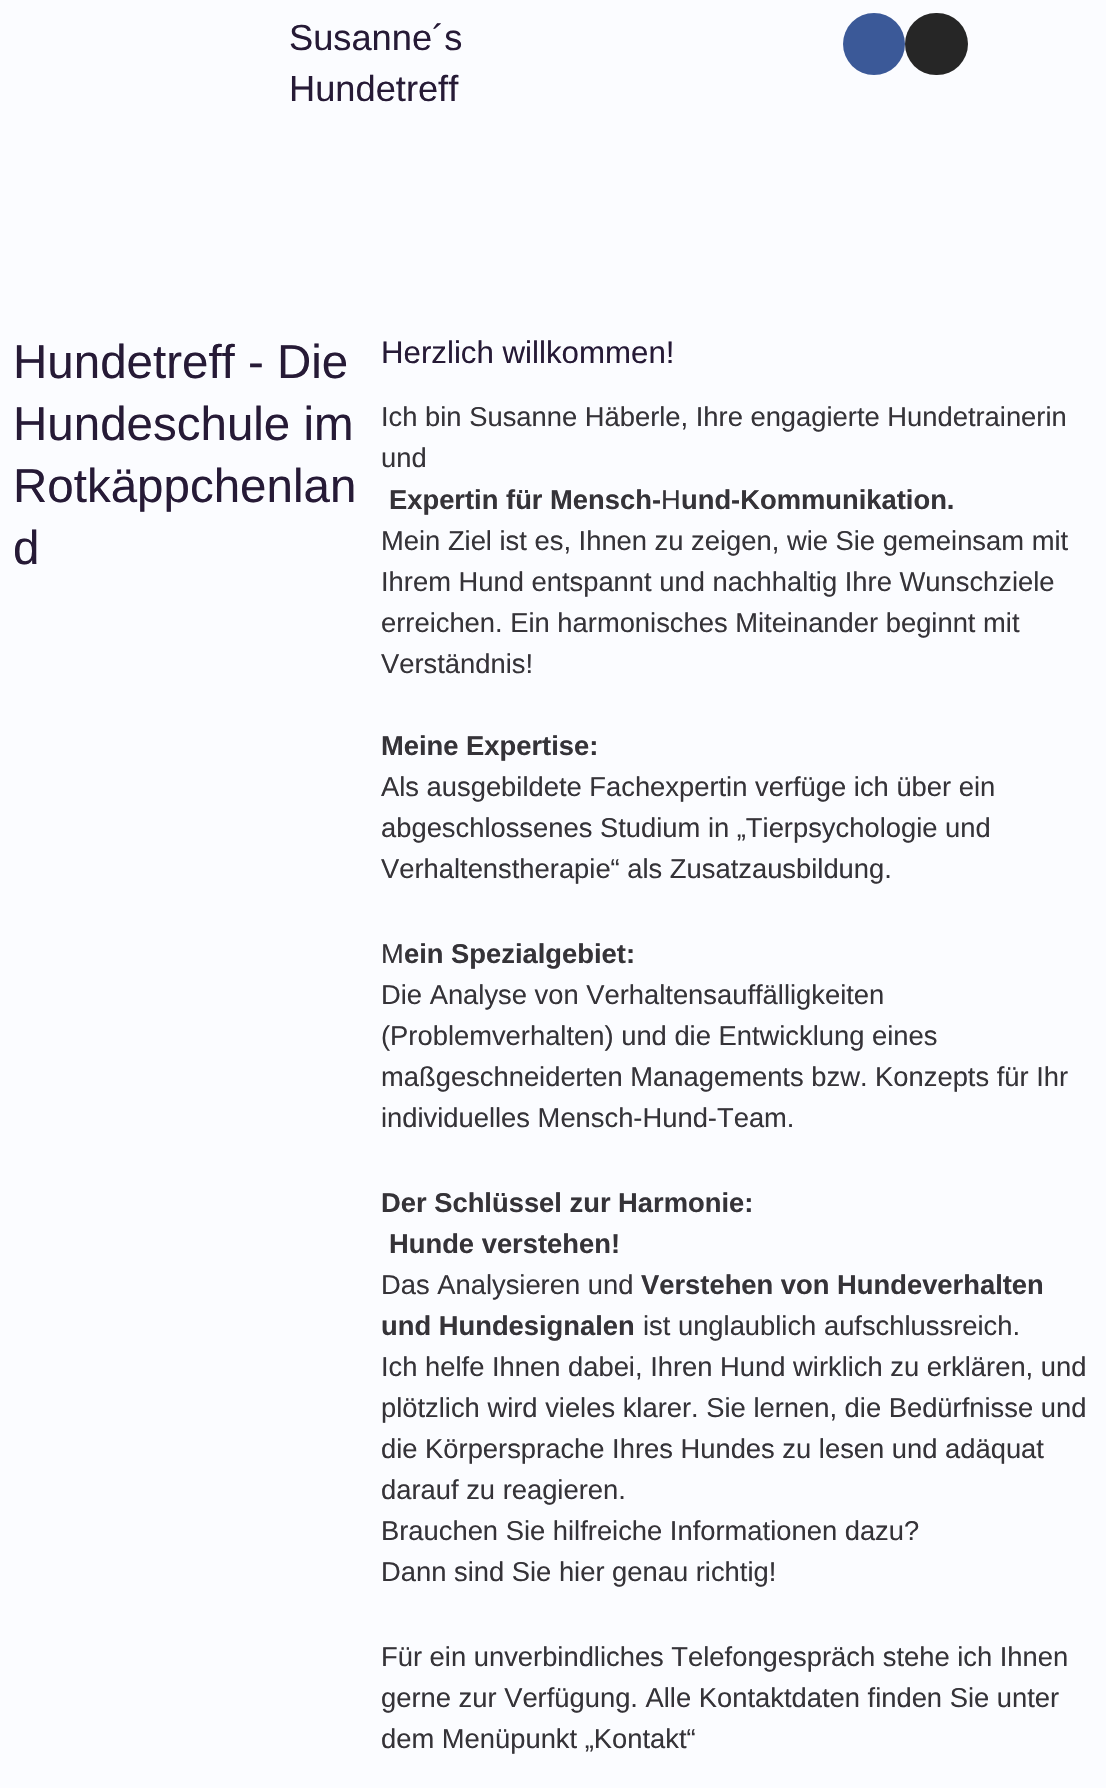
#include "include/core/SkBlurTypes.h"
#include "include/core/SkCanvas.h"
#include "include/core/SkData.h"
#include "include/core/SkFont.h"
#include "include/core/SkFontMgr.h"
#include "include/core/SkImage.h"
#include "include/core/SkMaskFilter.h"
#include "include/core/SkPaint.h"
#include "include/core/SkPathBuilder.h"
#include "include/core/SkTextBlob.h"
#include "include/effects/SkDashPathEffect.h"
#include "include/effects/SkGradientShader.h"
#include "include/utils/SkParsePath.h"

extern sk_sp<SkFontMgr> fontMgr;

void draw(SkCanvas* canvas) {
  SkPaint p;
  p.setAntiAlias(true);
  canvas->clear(SkColorSetRGB(251, 252, 255));
  p.setColor(SkColorSetRGB(59, 89, 152));
  canvas->drawCircle(874, 44, 31, p);
  p.setColor(SkColorSetRGB(38, 38, 38));
  canvas->drawRoundRect(SkRect::MakeLTRB(905, 13, 968, 75), 31, 31, p);
  SkFont font1(fontMgr->matchFamilyStyle("Liberation Sans", SkFontStyle::Normal()), 36.25f);
  font1.setSubpixel(true);
  p.setColor(SkColorSetRGB(38, 26, 54));
  canvas->drawString("Susanne´s", 289, 50, font1, p);
  canvas->drawString("Hundetreff", 289, 101, font1, p);
  SkFont font2(fontMgr->matchFamilyStyle("Liberation Sans", SkFontStyle::Normal()), 47.5f);
  font2.setSubpixel(true);
  canvas->drawString("Hundetreff - Die", 13, 378, font2, p);
  canvas->drawString("Hundeschule im", 13, 440, font2, p);
  canvas->drawString("Rotkäppchenlan", 13, 502, font2, p);
  canvas->drawString("d", 13, 564, font2, p);
  SkFont font3(fontMgr->matchFamilyStyle("Liberation Sans", SkFontStyle::Normal()), 31.25f);
  font3.setSubpixel(true);
  canvas->drawString("Herzlich willkommen!", 381, 363, font3, p);
  SkFont font4(fontMgr->matchFamilyStyle("Liberation Sans", SkFontStyle::Normal()), 27.35f);
  font4.setSubpixel(true);
  p.setColor(SkColorSetRGB(53, 51, 56));
  canvas->drawString("Ich bin Susanne Häberle, Ihre engagierte Hundetrainerin", 381, 426, font4, p);
  canvas->drawString("und", 381, 467, font4, p);
  SkFont font5(fontMgr->matchFamilyStyle("Liberation Sans", SkFontStyle::Bold()), 27.35f);
  font5.setSubpixel(true);
  canvas->drawString("Expertin für Mensch-", 389, 509, font5, p);
  canvas->drawString("H", 661, 509, font4, p);
  canvas->drawString("und-Kommunikation.", 681, 509, font5, p);
  canvas->drawString("Mein Ziel ist es, Ihnen zu zeigen, wie Sie gemeinsam mit", 381, 550, font4, p);
  canvas->drawString("Ihrem Hund entspannt und nachhaltig Ihre Wunschziele", 381, 591, font4, p);
  canvas->drawString("erreichen. Ein harmonisches Miteinander beginnt mit", 381, 632, font4, p);
  canvas->drawString("Verständnis!", 381, 673, font4, p);
  canvas->drawString("Meine Expertise:", 381, 755, font5, p);
  canvas->drawString("Als ausgebildete Fachexpertin verfüge ich über ein", 381, 796, font4, p);
  canvas->drawString("abgeschlossenes Studium in „Tierpsychologie und", 381, 837, font4, p);
  canvas->drawString("Verhaltenstherapie“ als Zusatzausbildung.", 381, 878, font4, p);
  canvas->drawString("M", 381, 963, font4, p);
  canvas->drawString("ein Spezialgebiet:", 404, 963, font5, p);
  canvas->drawString("Die Analyse von Verhaltensauffälligkeiten", 381, 1004, font4, p);
  canvas->drawString("(Problemverhalten) und die Entwicklung eines", 381, 1045, font4, p);
  canvas->drawString("maßgeschneiderten Managements bzw. Konzepts für Ihr", 381, 1086, font4, p);
  canvas->drawString("individuelles Mensch-Hund-Team.", 381, 1127, font4, p);
  canvas->drawString("Der Schlüssel zur Harmonie:", 381, 1212, font5, p);
  canvas->drawString("Hunde verstehen!", 389, 1253, font5, p);
  canvas->drawString("Das Analysieren und", 381, 1294, font4, p);
  canvas->drawString("Verstehen von Hundeverhalten", 641, 1294, font5, p);
  canvas->drawString("und Hundesignalen", 381, 1335, font5, p);
  canvas->drawString("ist unglaublich aufschlussreich.", 643, 1335, font4, p);
  canvas->drawString("Ich helfe Ihnen dabei, Ihren Hund wirklich zu erklären, und", 381, 1376, font4, p);
  canvas->drawString("plötzlich wird vieles klarer. Sie lernen, die Bedürfnisse und", 381, 1417, font4, p);
  canvas->drawString("die Körpersprache Ihres Hundes zu lesen und adäquat", 381, 1458, font4, p);
  canvas->drawString("darauf zu reagieren.", 381, 1499, font4, p);
  canvas->drawString("Brauchen Sie hilfreiche Informationen dazu?", 381, 1540, font4, p);
  canvas->drawString("Dann sind Sie hier genau richtig!", 381, 1581, font4, p);
  canvas->drawString("Für ein unverbindliches Telefongespräch stehe ich Ihnen", 381, 1666, font4, p);
  canvas->drawString("gerne zur Verfügung. Alle Kontaktdaten finden Sie unter", 381, 1707, font4, p);
  canvas->drawString("dem Menüpunkt „Kontakt“", 381, 1748, font4, p);
}
